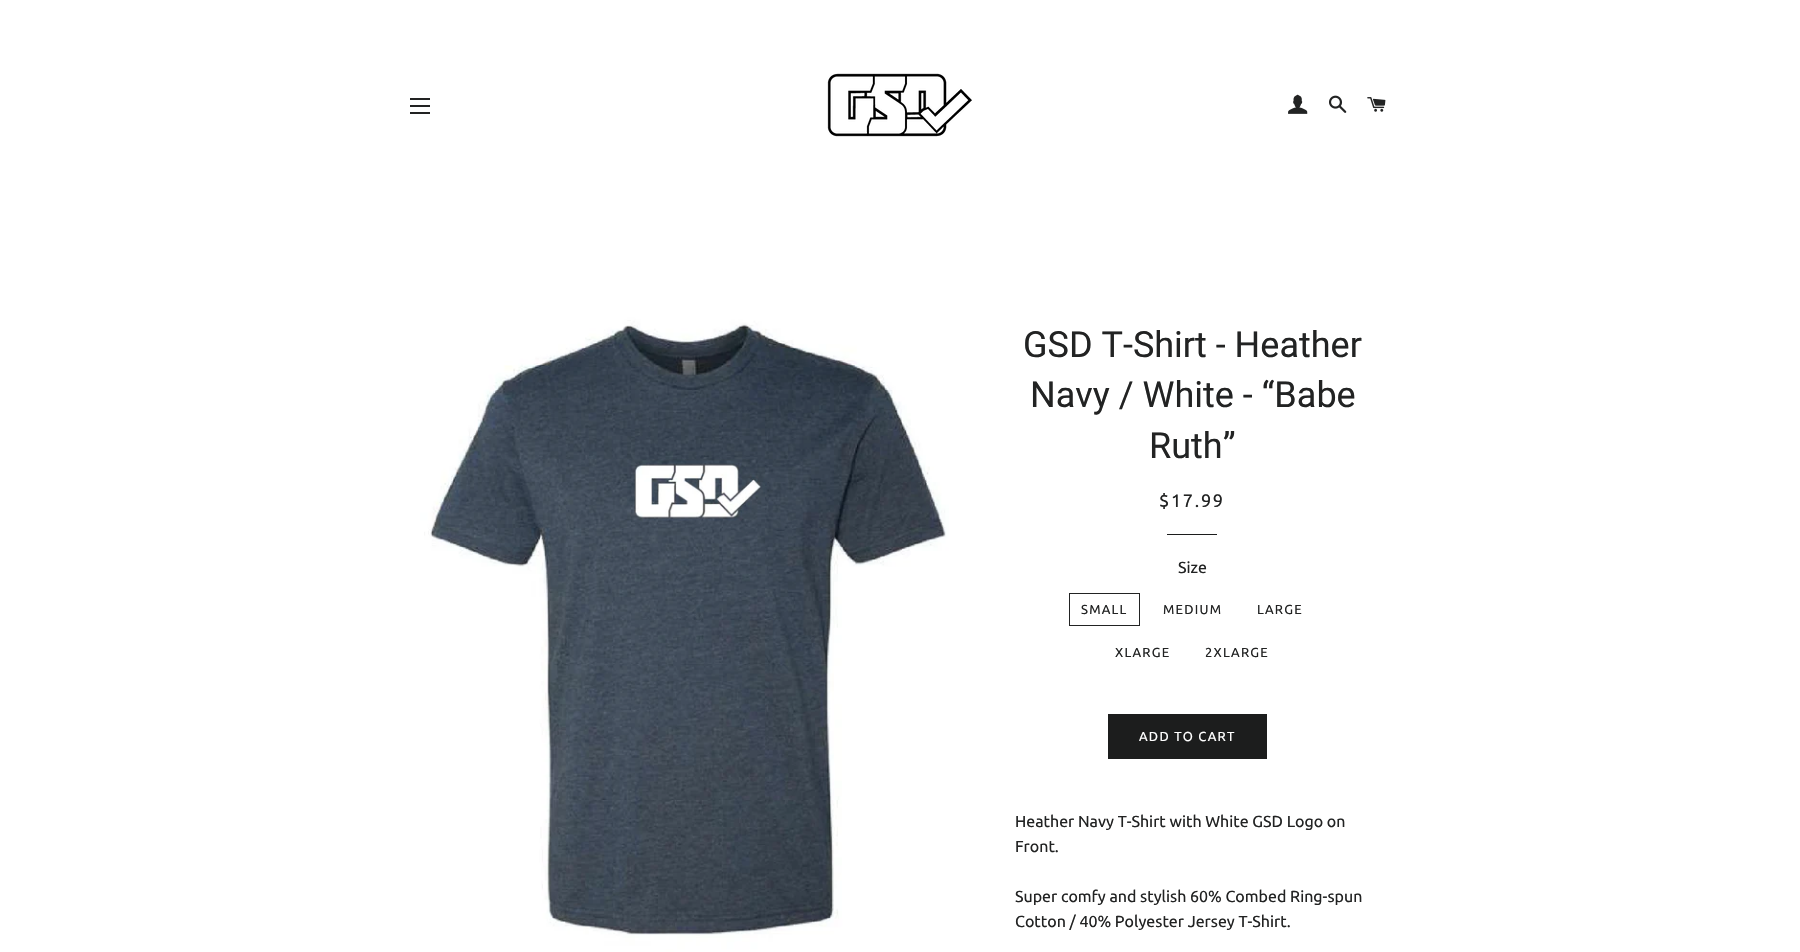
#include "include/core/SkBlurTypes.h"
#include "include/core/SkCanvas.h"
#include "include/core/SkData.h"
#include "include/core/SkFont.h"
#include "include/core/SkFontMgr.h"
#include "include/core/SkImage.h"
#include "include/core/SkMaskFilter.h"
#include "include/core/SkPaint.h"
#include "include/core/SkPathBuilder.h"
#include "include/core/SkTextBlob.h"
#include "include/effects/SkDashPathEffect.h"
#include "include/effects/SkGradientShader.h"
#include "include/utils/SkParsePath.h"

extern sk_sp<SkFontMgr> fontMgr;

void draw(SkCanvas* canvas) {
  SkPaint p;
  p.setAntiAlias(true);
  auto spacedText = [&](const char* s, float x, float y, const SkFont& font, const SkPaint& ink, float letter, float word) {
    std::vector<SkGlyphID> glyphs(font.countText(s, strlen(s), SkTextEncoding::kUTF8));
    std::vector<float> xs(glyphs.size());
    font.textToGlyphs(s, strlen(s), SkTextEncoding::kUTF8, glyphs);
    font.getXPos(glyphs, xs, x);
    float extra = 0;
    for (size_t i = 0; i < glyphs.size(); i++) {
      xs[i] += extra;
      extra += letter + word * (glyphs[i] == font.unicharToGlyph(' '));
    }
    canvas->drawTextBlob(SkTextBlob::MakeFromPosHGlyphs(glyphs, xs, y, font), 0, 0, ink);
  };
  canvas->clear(SK_ColorWHITE);
  p.setColor(SkColorSetRGB(34, 35, 35));
  canvas->drawRect(SkRect::MakeLTRB(410, 98, 430, 100), p);
  canvas->drawRect(SkRect::MakeLTRB(410, 105, 430, 107), p);
  canvas->drawRect(SkRect::MakeLTRB(410, 112, 430, 114), p);
  canvas->drawImageRect(SkImages::DeferredFromEncodedData(SkData::MakeFromFileName("images/1.png")), SkRect::MakeLTRB(827, 73, 972, 137), SkSamplingOptions());
  canvas->drawImageRect(SkImages::DeferredFromEncodedData(SkData::MakeFromFileName("images/2.png")), SkRect::MakeLTRB(1288, 94, 1308, 114), SkSamplingOptions());
  canvas->drawImageRect(SkImages::DeferredFromEncodedData(SkData::MakeFromFileName("images/3.png")), SkRect::MakeLTRB(1329, 95, 1347, 113), SkSamplingOptions());
  canvas->drawImageRect(SkImages::DeferredFromEncodedData(SkData::MakeFromFileName("images/4.png")), SkRect::MakeLTRB(1367, 97, 1386, 112), SkSamplingOptions());
  canvas->drawImageRect(SkImages::DeferredFromEncodedData(SkData::MakeFromFileName("images/5.png")), SkRect::MakeLTRB(405, 275, 970, 952), SkSamplingOptions());
  p.setColor(SkColorSetRGB(28, 29, 29));
  canvas->drawRect(SkRect::MakeLTRB(1167, 534, 1217, 535), p);
  p.setStyle(SkPaint::kStroke_Style);
  p.setStrokeWidth(1);
  p.setColor(SkColorSetRGB(34, 35, 35));
  canvas->drawRect(SkRect::MakeLTRB(1069.5f, 593.5f, 1139.5f, 625.5f), p);
  p.setStyle(SkPaint::kFill_Style);
  p.setColor(SkColorSetRGB(28, 29, 29));
  canvas->drawRect(SkRect::MakeLTRB(1108, 714, 1267, 759), p);
  SkFont font1(fontMgr->matchFamilyStyle("Roboto", SkFontStyle::Normal()), 36);
  font1.setSubpixel(true);
  p.setColor(SkColorSetRGB(34, 35, 35));
  canvas->drawString("GSD T-Shirt - Heather", 1023, 357, font1, p);
  canvas->drawString("Navy / White - “Babe", 1030, 407, font1, p);
  canvas->drawString("Ruth”", 1149, 458, font1, p);
  SkFont font2(fontMgr->matchFamilyStyle("Ubuntu", SkFontStyle::Normal()), 18);
  font2.setSubpixel(true);
  spacedText("$17.99", 1159, 507, font2, p, 1.75f, 0);
  SkFont font3(fontMgr->matchFamilyStyle("Ubuntu", SkFontStyle::Normal()), 16);
  font3.setSubpixel(true);
  canvas->drawString("Size", 1178, 573, font3, p);
  SkFont font4(fontMgr->matchFamilyStyle("Ubuntu", SkFontStyle::Normal()), 13);
  font4.setSubpixel(true);
  spacedText("SMALL", 1081, 614, font4, p, 1.25f, 0);
  spacedText("MEDIUM", 1163, 614, font4, p, 1.25f, 0);
  spacedText("LARGE", 1257, 614, font4, p, 1.25f, 0);
  spacedText("XLARGE", 1115, 657, font4, p, 1.25f, 0);
  spacedText("2XLARGE", 1205, 657, font4, p, 1.25f, 0);
  p.setColor(SK_ColorWHITE);
  spacedText("ADD TO CART", 1139, 741, font4, p, 1.25f, 0);
  p.setColor(SkColorSetRGB(34, 35, 35));
  canvas->drawString("Heather Navy T-Shirt with White GSD Logo on", 1015, 827, font3, p);
  canvas->drawString("Front.", 1015, 852, font3, p);
  canvas->drawString("Super comfy and stylish 60% Combed Ring-spun", 1015, 902, font3, p);
  canvas->drawString("Cotton / 40% Polyester Jersey T-Shirt.", 1015, 927, font3, p);
}
